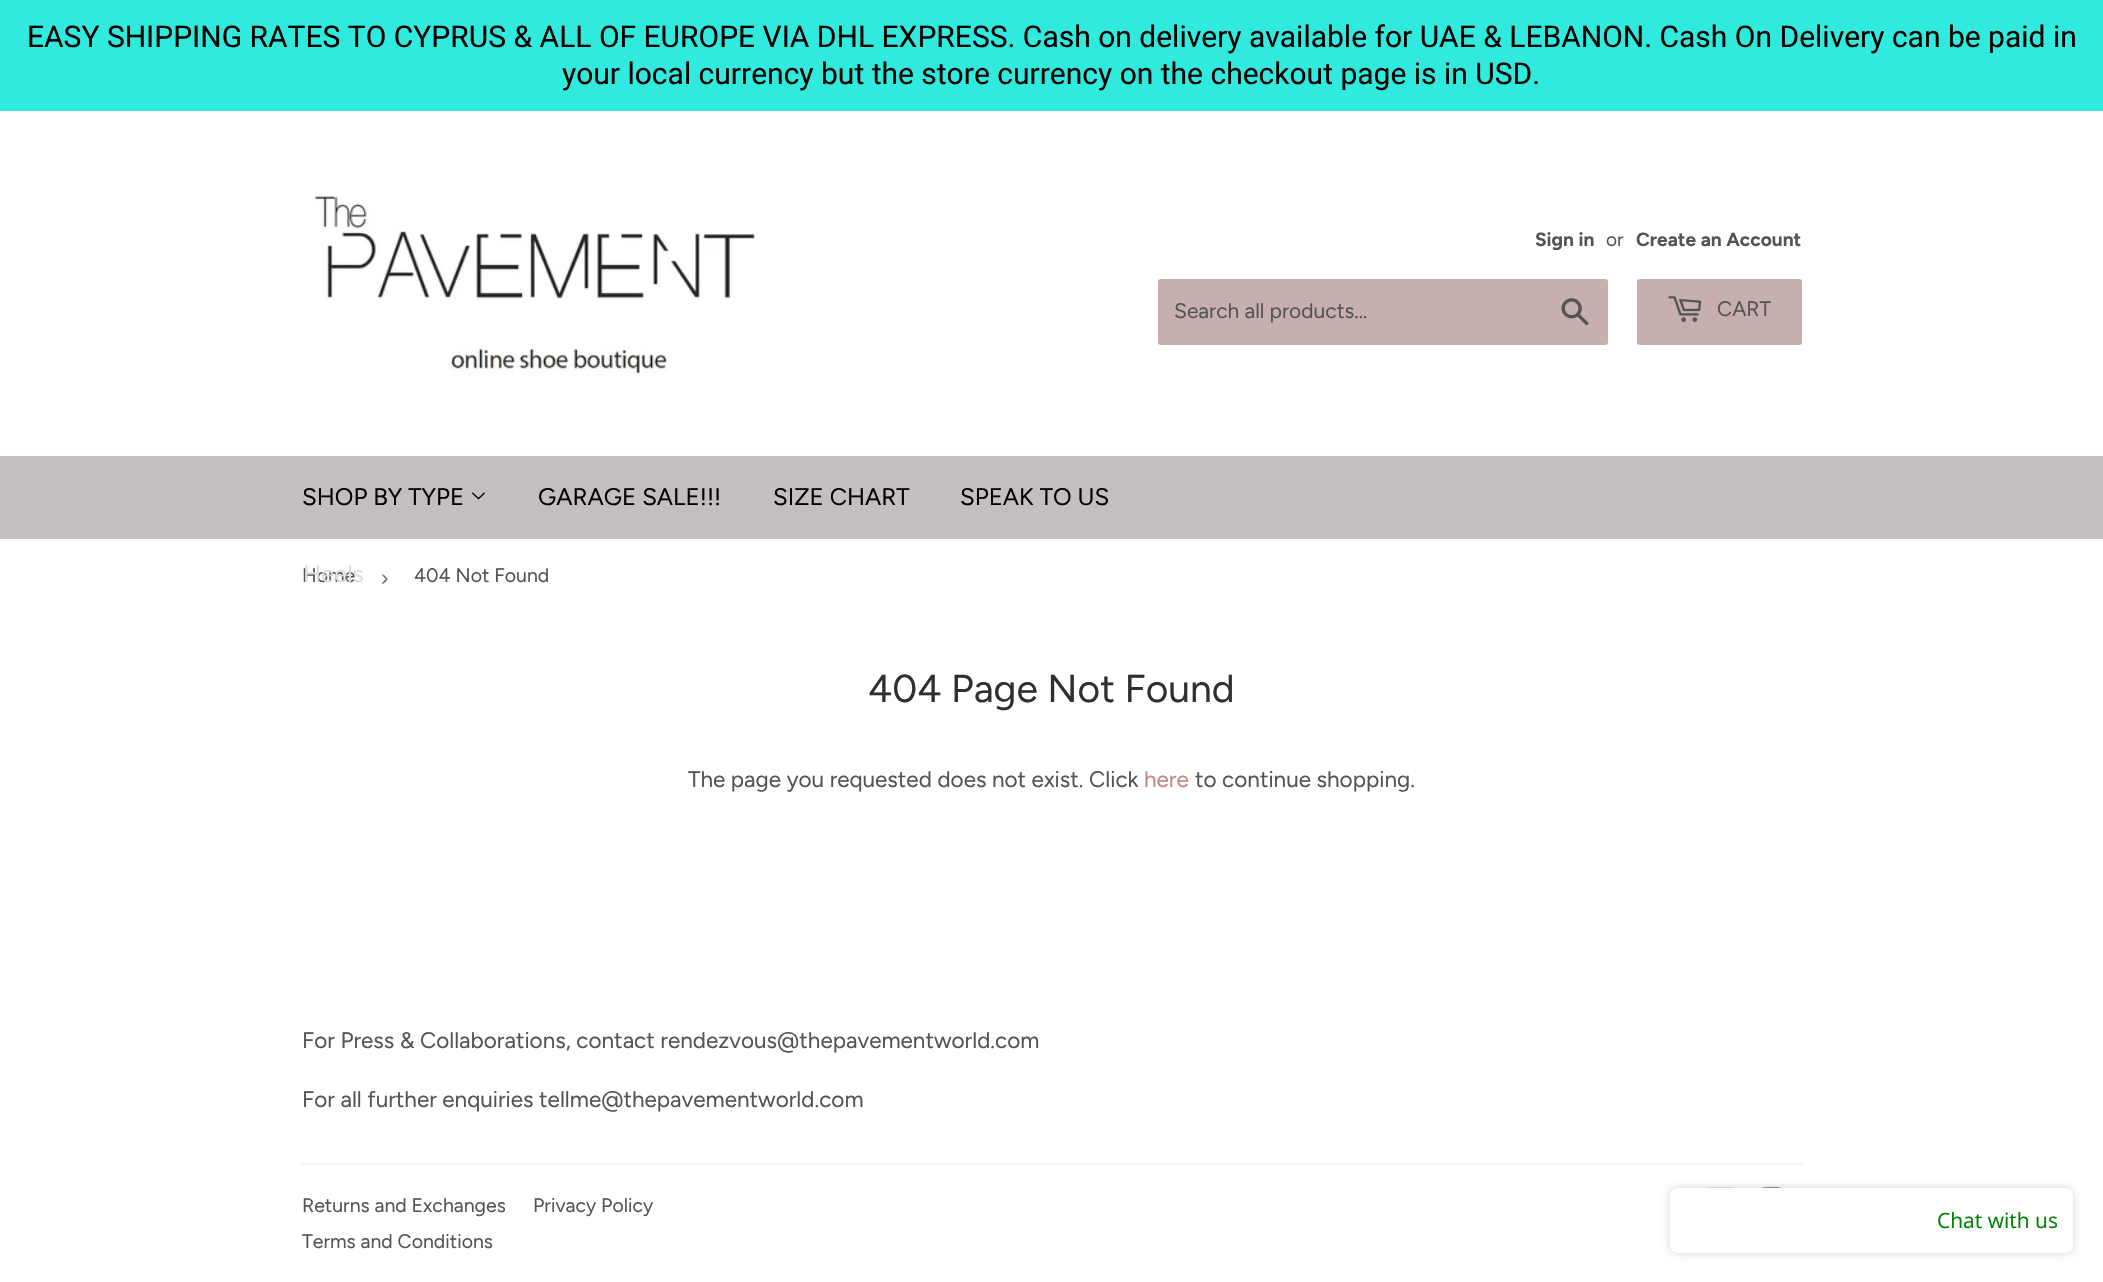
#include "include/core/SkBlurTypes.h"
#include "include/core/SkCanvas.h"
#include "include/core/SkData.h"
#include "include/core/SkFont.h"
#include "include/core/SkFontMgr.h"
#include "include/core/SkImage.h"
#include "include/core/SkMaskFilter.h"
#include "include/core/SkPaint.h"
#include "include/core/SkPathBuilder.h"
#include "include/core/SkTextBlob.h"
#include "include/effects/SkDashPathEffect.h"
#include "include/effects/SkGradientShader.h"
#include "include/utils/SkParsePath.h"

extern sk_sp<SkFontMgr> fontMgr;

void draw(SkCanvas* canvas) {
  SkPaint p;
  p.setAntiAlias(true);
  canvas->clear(SK_ColorWHITE);
  p.setColor(SkColorSetRGB(49, 234, 222));
  canvas->drawRect(SkRect::MakeLTRB(0, 0, 2103, 111), p);
  canvas->drawImageRect(SkImages::DeferredFromEncodedData(SkData::MakeFromFileName("images/1.png")), SkRect::MakeLTRB(314, 196, 755, 376), SkSamplingOptions());
  p.setColor(SkColorSetRGB(199, 175, 175));
  canvas->drawRoundRect(SkRect::MakeLTRB(1158, 279, 1608, 345), 3, 3, p);
  canvas->drawImageRect(SkImages::DeferredFromEncodedData(SkData::MakeFromFileName("images/2.png")), SkRect::MakeLTRB(1561, 298, 1589, 326), SkSamplingOptions());
  canvas->drawRoundRect(SkRect::MakeLTRB(1637, 279, 1802, 345), 3, 3, p);
  canvas->drawImageRect(SkImages::DeferredFromEncodedData(SkData::MakeFromFileName("images/3.png")), SkRect::MakeLTRB(1668, 296, 1702, 322), SkSamplingOptions());
  p.setColor(SkColorSetRGB(197, 190, 190));
  canvas->drawRect(SkRect::MakeLTRB(0, 456, 2103, 539), p);
  canvas->drawImageRect(SkImages::DeferredFromEncodedData(SkData::MakeFromFileName("images/4.png")), SkRect::MakeLTRB(472, 492, 485, 500), SkSamplingOptions());
  p.setColor(SkColorSetRGB(242, 242, 242));
  canvas->drawRect(SkRect::MakeLTRB(302, 1163, 1802, 1165), p);
  canvas->drawImageRect(SkImages::DeferredFromEncodedData(SkData::MakeFromFileName("images/5.png")), SkRect::MakeLTRB(1707, 1187, 1734, 1188), SkSamplingOptions());
  canvas->drawImageRect(SkImages::DeferredFromEncodedData(SkData::MakeFromFileName("images/6.png")), SkRect::MakeLTRB(1761, 1186, 1782, 1188), SkSamplingOptions());
  p.setColor(SkColorSetRGB(211, 211, 211));
  p.setMaskFilter(SkMaskFilter::MakeBlur(kNormal_SkBlurStyle, 4));
  canvas->drawRoundRect(SkRect::MakeLTRB(1670, 1188, 2073, 1253), 8, 8, p);
  p.setMaskFilter(nullptr);
  p.setColor(SK_ColorWHITE);
  canvas->drawRoundRect(SkRect::MakeLTRB(1670, 1188, 2073, 1253), 8, 8, p);
  SkFont font1(fontMgr->matchFamilyStyle("Roboto", SkFontStyle::Normal()), 30);
  font1.setSubpixel(true);
  p.setColor(SK_ColorBLACK);
  canvas->drawString("EASY SHIPPING RATES TO CYPRUS & ALL OF EUROPE VIA DHL EXPRESS. Cash on delivery available for UAE & LEBANON. Cash On Delivery can be paid in", 27, 47, font1, p);
  canvas->drawString("your local currency but the store currency on the checkout page is in USD.", 562, 84, font1, p);
  SkFont font2(fontMgr->matchFamilyStyle("Figtree", SkFontStyle::Bold()), 19.1f);
  font2.setSubpixel(true);
  p.setColor(SkColorSetRGB(84, 84, 84));
  canvas->drawString("Sign in", 1535, 246, font2, p);
  SkFont font3(fontMgr->matchFamilyStyle("Figtree", SkFontStyle::Normal()), 19.1f);
  font3.setSubpixel(true);
  canvas->drawString("or", 1606, 246, font3, p);
  canvas->drawString("Create an Account", 1636, 246, font2, p);
  SkFont font4(fontMgr->matchFamilyStyle("Figtree", SkFontStyle::Normal()), 21);
  font4.setSubpixel(true);
  canvas->drawString("Search all products...", 1174, 318, font4, p);
  canvas->drawString("CART", 1717, 316, font4, p);
  SkFont font5(fontMgr->matchFamilyStyle("Figtree", SkFontStyle::Normal()), 24);
  font5.setSubpixel(true);
  p.setColor(SK_ColorBLACK);
  canvas->drawString("SHOP BY TYPE", 302, 505, font5, p);
  canvas->drawString("GARAGE SALE!!!", 538, 505, font5, p);
  canvas->drawString("SIZE CHART", 773, 505, font5, p);
  canvas->drawString("SPEAK TO US", 960, 505, font5, p);
  SkFont font6(fontMgr->matchFamilyStyle("Figtree", SkFontStyle::Normal()), 19.5f);
  font6.setSubpixel(true);
  p.setColor(SkColorSetRGB(84, 84, 84));
  canvas->drawString("Home", 302, 582, font6, p);
  p.setColor(SkColorSetRGB(221, 221, 221));
  canvas->drawString("Heels", 303, 582, font5, p);
  SkFont font7(fontMgr->matchFamilyStyle("Liberation Sans", SkFontStyle::Normal()), 22.5f);
  font7.setSubpixel(true);
  p.setColor(SkColorSetRGB(118, 118, 118));
  canvas->drawString("›", 381, 585, font7, p);
  p.setColor(SkColorSetRGB(84, 84, 84));
  canvas->drawString("404 Not Found", 414, 582, font6, p);
  SkFont font8(fontMgr->matchFamilyStyle("Figtree", SkFontStyle::Normal()), 39);
  font8.setSubpixel(true);
  p.setColor(SkColorSetRGB(47, 47, 47));
  canvas->drawString("404 Page Not Found", 868, 702, font8, p);
  SkFont font9(fontMgr->matchFamilyStyle("Figtree", SkFontStyle::Normal()), 22.5f);
  font9.setSubpixel(true);
  p.setColor(SkColorSetRGB(84, 84, 84));
  canvas->drawString("The page you requested does not exist. Click", 688, 787, font9, p);
  p.setColor(SkColorSetRGB(194, 134, 134));
  canvas->drawString("here", 1144, 787, font9, p);
  p.setColor(SkColorSetRGB(84, 84, 84));
  canvas->drawString("to continue shopping.", 1195, 787, font9, p);
  canvas->drawString("For Press & Collaborations, contact rendezvous@thepavementworld.com", 302, 1048, font9, p);
  canvas->drawString("For all further enquiries tellme@thepavementworld.com", 302, 1107, font9, p);
  canvas->drawString("Returns and Exchanges", 302, 1212, font6, p);
  canvas->drawString("Privacy Policy", 533, 1212, font6, p);
  canvas->drawString("Terms and Conditions", 302, 1248, font6, p);
  SkFont font10(fontMgr->matchFamilyStyle("Open Sans", SkFontStyle::Normal()), 21);
  font10.setSubpixel(true);
  p.setColor(SkColorSetRGB(0, 128, 0));
  canvas->drawString("Chat with us", 1937, 1228, font10, p);
}
